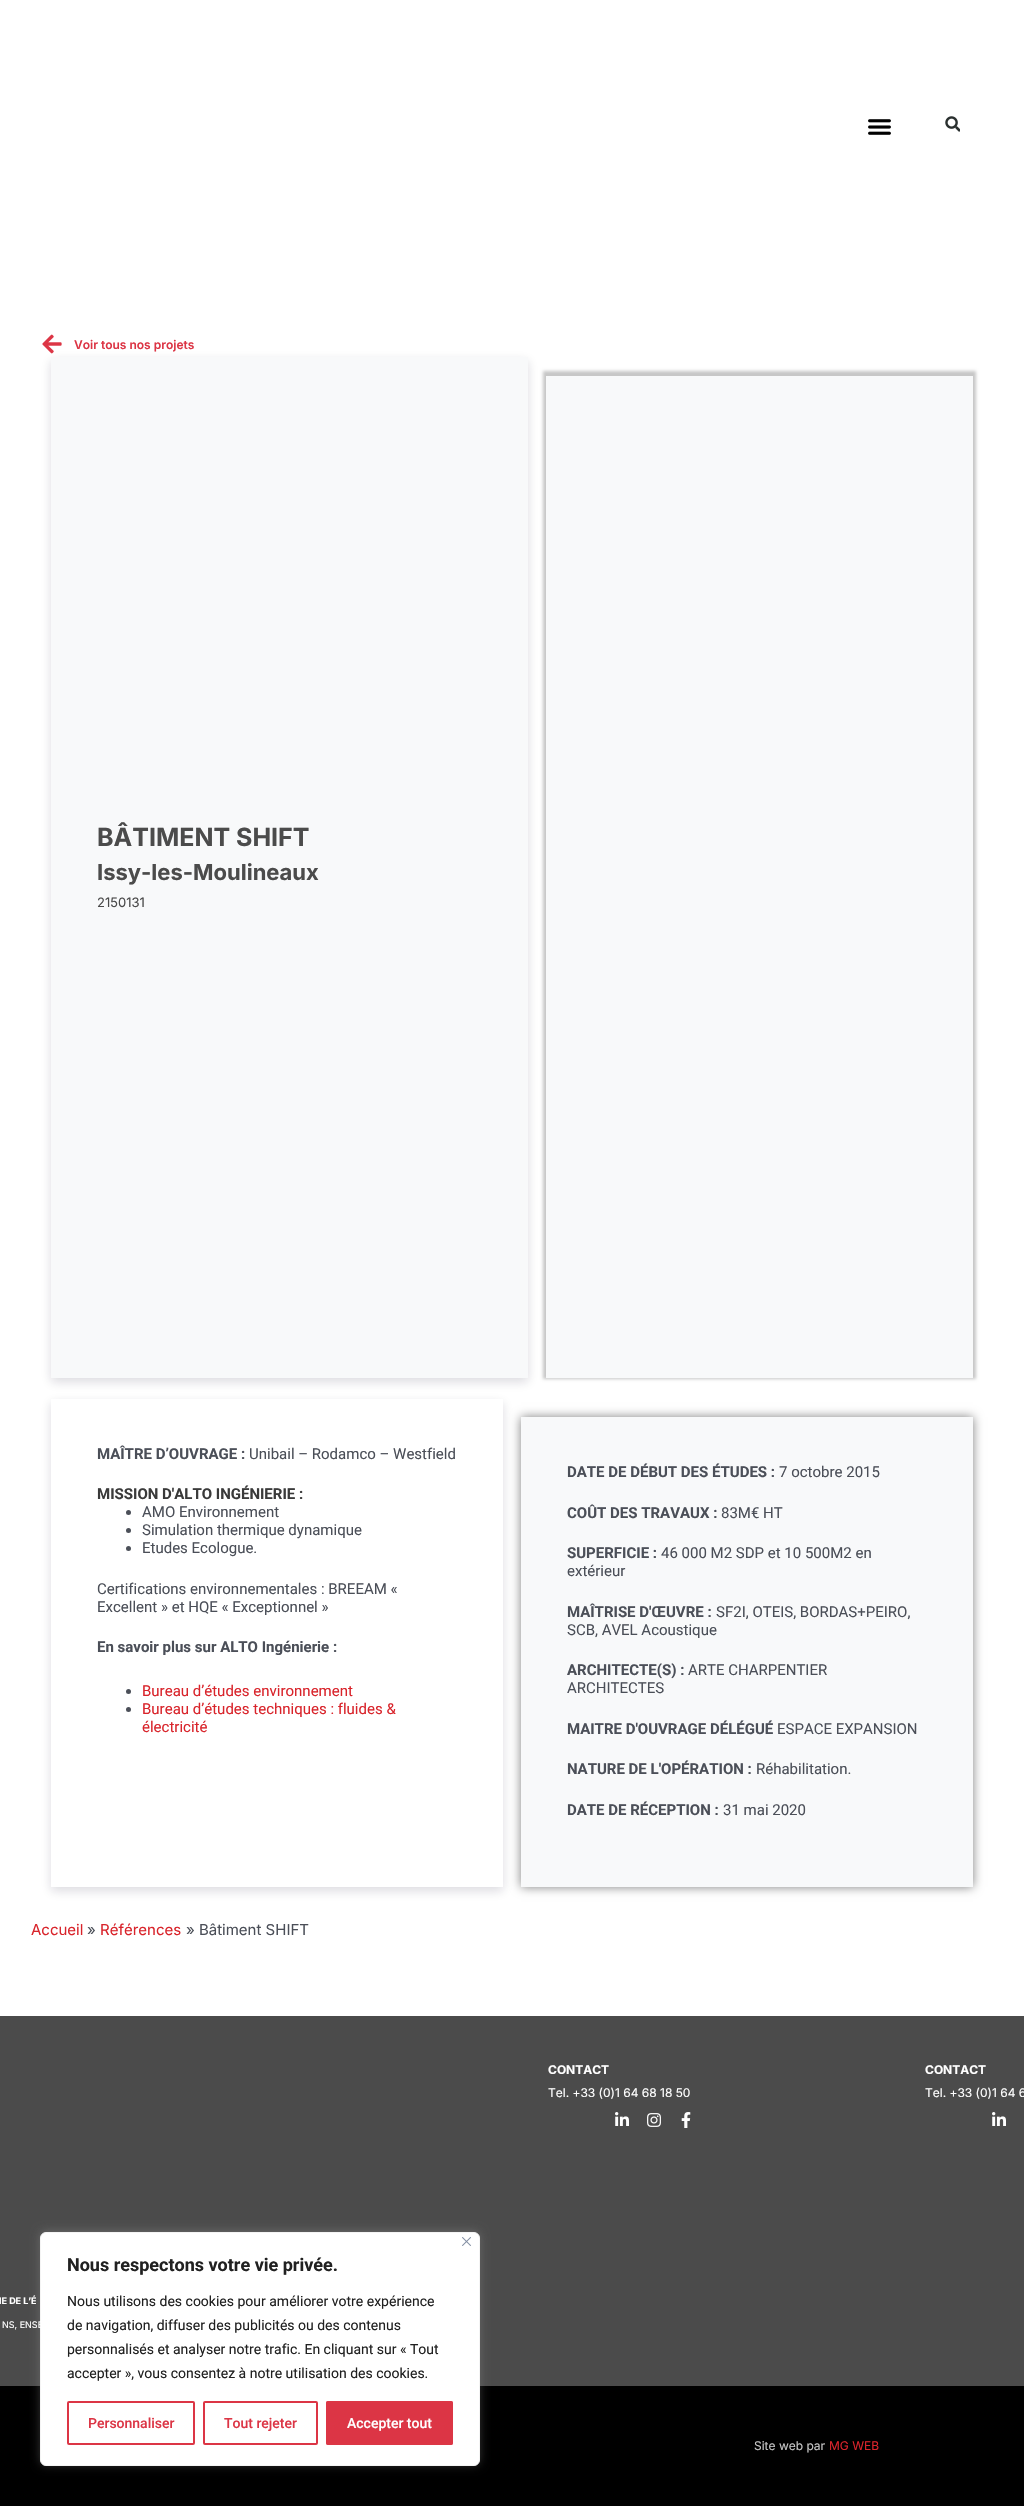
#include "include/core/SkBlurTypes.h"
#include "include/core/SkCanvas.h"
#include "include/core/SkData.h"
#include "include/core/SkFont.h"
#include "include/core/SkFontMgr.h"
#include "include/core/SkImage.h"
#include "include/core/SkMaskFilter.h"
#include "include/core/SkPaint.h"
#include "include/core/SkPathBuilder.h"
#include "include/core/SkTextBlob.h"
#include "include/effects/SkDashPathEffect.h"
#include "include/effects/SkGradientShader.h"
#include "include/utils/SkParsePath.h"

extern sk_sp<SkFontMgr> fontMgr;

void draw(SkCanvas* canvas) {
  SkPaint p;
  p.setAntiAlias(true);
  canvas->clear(SK_ColorWHITE);
  canvas->drawImageRect(SkImages::DeferredFromEncodedData(SkData::MakeFromFileName("images/1.png")), SkRect::MakeLTRB(868, 119, 891, 135), SkSamplingOptions());
  canvas->drawImageRect(SkImages::DeferredFromEncodedData(SkData::MakeFromFileName("images/2.png")), SkRect::MakeLTRB(945, 116, 960, 132), SkSamplingOptions());
  canvas->drawImageRect(SkImages::DeferredFromEncodedData(SkData::MakeFromFileName("images/3.png")), SkRect::MakeLTRB(42, 334, 62, 354), SkSamplingOptions());
  p.setColor(SkColorSetARGB(38, 17, 12, 46));
  p.setMaskFilter(SkMaskFilter::MakeBlur(kNormal_SkBlurStyle, 5));
  canvas->drawRect(SkRect::MakeLTRB(51, 361, 528, 1382), p);
  p.setMaskFilter(nullptr);
  p.setColor(SkColorSetRGB(248, 249, 250));
  canvas->drawRect(SkRect::MakeLTRB(51, 357, 528, 1378), p);
  p.setColor(SkColorSetARGB(56, 0, 0, 0));
  p.setMaskFilter(SkMaskFilter::MakeBlur(kNormal_SkBlurStyle, 1.5f));
  canvas->drawRect(SkRect::MakeLTRB(543, 371, 976, 1379), p);
  p.setMaskFilter(nullptr);
  p.setColor(SkColorSetRGB(248, 249, 250));
  canvas->drawRect(SkRect::MakeLTRB(546, 376, 973, 1378), p);
  canvas->save();
  canvas->clipPath(SkPathBuilder(SkPathFillType::kEvenOdd).moveTo(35, 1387).lineTo(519, 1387).lineTo(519, 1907).lineTo(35, 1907).close().moveTo(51, 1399).lineTo(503, 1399).lineTo(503, 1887).lineTo(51, 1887).close().detach(), true);
  p.setColor(SkColorSetARGB(38, 17, 12, 46));
  p.setMaskFilter(SkMaskFilter::MakeBlur(kNormal_SkBlurStyle, 5));
  canvas->drawRect(SkRect::MakeLTRB(51, 1403, 503, 1891), p);
  p.setMaskFilter(nullptr);
  canvas->restore();
  p.setColor(SkColorSetRGB(75, 79, 88));
  canvas->drawCircle(128.5f, 1512.5f, 2.5f, p);
  canvas->drawCircle(128.5f, 1530.5f, 2.5f, p);
  canvas->drawCircle(128.5f, 1548.5f, 2.5f, p);
  canvas->drawCircle(128.5f, 1691.5f, 2.5f, p);
  canvas->drawCircle(128.5f, 1709.5f, 2.5f, p);
  p.setColor(SkColorSetARGB(128, 0, 0, 0));
  p.setMaskFilter(SkMaskFilter::MakeBlur(kNormal_SkBlurStyle, 5));
  canvas->drawRect(SkRect::MakeLTRB(521, 1417, 973, 1887), p);
  p.setMaskFilter(nullptr);
  p.setColor(SkColorSetRGB(248, 249, 250));
  canvas->drawRect(SkRect::MakeLTRB(521, 1417, 973, 1887), p);
  p.setColor(SkColorSetRGB(75, 75, 75));
  canvas->drawRect(SkRect::MakeLTRB(0, 2016, 1024, 2386), p);
  canvas->drawImageRect(SkImages::DeferredFromEncodedData(SkData::MakeFromFileName("images/4.png")), SkRect::MakeLTRB(615, 2112, 629, 2126), SkSamplingOptions());
  canvas->drawImageRect(SkImages::DeferredFromEncodedData(SkData::MakeFromFileName("images/5.png")), SkRect::MakeLTRB(647, 2113, 661, 2127), SkSamplingOptions());
  canvas->drawImageRect(SkImages::DeferredFromEncodedData(SkData::MakeFromFileName("images/6.png")), SkRect::MakeLTRB(681, 2112, 691, 2128), SkSamplingOptions());
  canvas->drawImageRect(SkImages::DeferredFromEncodedData(SkData::MakeFromFileName("images/4.png")), SkRect::MakeLTRB(992, 2112, 1006, 2126), SkSamplingOptions());
  p.setColor(SK_ColorBLACK);
  canvas->drawRect(SkRect::MakeLTRB(0, 2386, 1024, 2506), p);
  p.setColor(SkColorSetARGB(77, 172, 171, 171));
  p.setMaskFilter(SkMaskFilter::MakeBlur(kNormal_SkBlurStyle, 5));
  canvas->drawRoundRect(SkRect::MakeLTRB(40, 2231, 480, 2465), 6, 6, p);
  p.setMaskFilter(nullptr);
  p.setColor(SK_ColorWHITE);
  canvas->drawRoundRect(SkRect::MakeLTRB(40.5f, 2232.5f, 479.5f, 2465.5f), 5.5f, 5.5f, p);
  p.setStyle(SkPaint::kStroke_Style);
  p.setStrokeWidth(1);
  p.setColor(SkColorSetRGB(244, 244, 244));
  canvas->drawRoundRect(SkRect::MakeLTRB(40.5f, 2232.5f, 479.5f, 2465.5f), 5.5f, 5.5f, p);
  canvas->drawImageRect(SkImages::DeferredFromEncodedData(SkData::MakeFromFileName("images/7.png")), SkRect::MakeLTRB(462, 2237, 471, 2246), SkSamplingOptions());
  p.setStrokeWidth(2);
  p.setColor(SkColorSetRGB(220, 53, 69));
  canvas->drawRoundRect(SkRect::MakeLTRB(68, 2402, 194, 2444), 1, 1, p);
  canvas->drawRoundRect(SkRect::MakeLTRB(204, 2402, 317, 2444), 1, 1, p);
  p.setStyle(SkPaint::kFill_Style);
  canvas->drawRoundRect(SkRect::MakeLTRB(326, 2401, 453, 2445), 2, 2, p);
  p.setStyle(SkPaint::kStroke_Style);
  p.setColor(SkColorSetARGB(219, 220, 53, 69));
  canvas->drawRoundRect(SkRect::MakeLTRB(327, 2402, 452, 2444), 1, 1, p);
  SkFont font1(fontMgr->matchFamilyStyle("Inter", SkFontStyle(600, SkFontStyle::kNormal_Width, SkFontStyle::kUpright_Slant)), 12);
  font1.setSubpixel(true);
  p.setStyle(SkPaint::kFill_Style);
  p.setColor(SkColorSetRGB(220, 53, 69));
  canvas->drawString("Voir tous nos projets", 74, 349, font1, p);
  SkFont font2(fontMgr->matchFamilyStyle("Inter", SkFontStyle::Bold()), 25);
  font2.setSubpixel(true);
  p.setColor(SkColorSetRGB(75, 75, 75));
  canvas->drawString("BÂTIMENT SHIFT", 97, 846, font2, p);
  SkFont font3(fontMgr->matchFamilyStyle("Inter", SkFontStyle::Bold()), 22);
  font3.setSubpixel(true);
  canvas->drawString("Issy-les-Moulineaux", 97, 880, font3, p);
  SkFont font4(fontMgr->matchFamilyStyle("Inter", SkFontStyle::Normal()), 13);
  font4.setSubpixel(true);
  canvas->drawString("2150131", 97, 907, font4, p);
  SkFont font5(fontMgr->matchFamilyStyle("Roboto", SkFontStyle::Bold()), 15);
  font5.setSubpixel(true);
  p.setColor(SkColorSetRGB(75, 79, 88));
  canvas->drawString("MAÎTRE D’OUVRAGE :", 97, 1459, font5, p);
  SkFont font6(fontMgr->matchFamilyStyle("Roboto", SkFontStyle::Normal()), 15);
  font6.setSubpixel(true);
  canvas->drawString("Unibail – Rodamco – Westfield", 249, 1459, font6, p);
  p.setColor(SkColorSetRGB(58, 58, 58));
  canvas->drawString("MISSION D'ALTO INGÉNIERIE :", 97, 1499, font5, p);
  p.setColor(SkColorSetRGB(75, 79, 88));
  canvas->drawString("AMO Environnement", 142, 1517, font6, p);
  canvas->drawString("Simulation thermique dynamique", 142, 1535, font6, p);
  canvas->drawString("Etudes Ecologue.", 142, 1553, font6, p);
  canvas->drawString("Certifications environnementales : BREEAM «", 97, 1594, font6, p);
  canvas->drawString("Excellent » et HQE « Exceptionnel »", 97, 1612, font6, p);
  canvas->drawString("En savoir plus sur ALTO Ingénierie :", 97, 1652, font5, p);
  p.setColor(SkColorSetRGB(217, 36, 43));
  canvas->drawString("Bureau d’études environnement", 142, 1696, font6, p);
  canvas->drawString("Bureau d’études techniques : fluides &", 142, 1714, font6, p);
  canvas->drawString("électricité", 142, 1732, font6, p);
  p.setColor(SkColorSetRGB(75, 79, 88));
  canvas->drawString("DATE DE DÉBUT DES ÉTUDES :", 567, 1477, font5, p);
  canvas->drawString("7 octobre 2015", 779, 1477, font6, p);
  canvas->drawString("COÛT DES TRAVAUX :", 567, 1518, font5, p);
  canvas->drawString("83M€ HT", 721, 1518, font6, p);
  canvas->drawString("SUPERFICIE :", 567, 1558, font5, p);
  canvas->drawString("46 000 M2 SDP et 10 500M2 en", 661, 1558, font6, p);
  canvas->drawString("extérieur", 567, 1576, font6, p);
  canvas->drawString("MAÎTRISE D'ŒUVRE :", 567, 1617, font5, p);
  canvas->drawString("SF2I, OTEIS, BORDAS+PEIRO,", 716, 1617, font6, p);
  canvas->drawString("SCB, AVEL Acoustique", 567, 1635, font6, p);
  canvas->drawString("ARCHITECTE(S) :", 567, 1675, font5, p);
  canvas->drawString("ARTE CHARPENTIER", 688, 1675, font6, p);
  canvas->drawString("ARCHITECTES", 567, 1693, font6, p);
  canvas->drawString("MAITRE D'OUVRAGE DÉLÉGUÉ", 567, 1734, font5, p);
  canvas->drawString("ESPACE EXPANSION", 777, 1734, font6, p);
  canvas->drawString("NATURE DE L'OPÉRATION :", 567, 1774, font5, p);
  canvas->drawString("Réhabilitation.", 756, 1774, font6, p);
  canvas->drawString("DATE DE RÉCEPTION :", 567, 1815, font5, p);
  canvas->drawString("31 mai 2020", 723, 1815, font6, p);
  SkFont font7(fontMgr->matchFamilyStyle("Inter", SkFontStyle::Normal()), 15);
  font7.setSubpixel(true);
  p.setColor(SkColorSetRGB(217, 36, 43));
  canvas->drawString("Accueil", 31, 1935, font7, p);
  p.setColor(SkColorSetRGB(75, 79, 88));
  canvas->drawString("»", 87, 1935, font7, p);
  p.setColor(SkColorSetRGB(217, 36, 43));
  canvas->drawString("Références", 100, 1935, font7, p);
  p.setColor(SkColorSetRGB(75, 79, 88));
  canvas->drawString("» Bâtiment SHIFT", 186, 1935, font7, p);
  SkFont font8(fontMgr->matchFamilyStyle("Inter", SkFontStyle::Bold()), 12);
  font8.setSubpixel(true);
  p.setColor(SK_ColorWHITE);
  canvas->drawString("CONTACT", 548, 2074, font8, p);
  SkFont font9(fontMgr->matchFamilyStyle("Inter", SkFontStyle::Normal()), 12);
  font9.setSubpixel(true);
  canvas->drawString("Tel. +33 (0)1 64 68 18 50", 548, 2097, font9, p);
  canvas->drawString("CONTACT", 925, 2074, font8, p);
  canvas->drawString("Tel. +33 (0)1 64 6", 925, 2097, font9, p);
  SkFont font10(fontMgr->matchFamilyStyle("Inter", SkFontStyle::Bold()), 9);
  font10.setSubpixel(true);
  canvas->drawString("IE DE L’É", -1, 2304, font10, p);
  SkFont font11(fontMgr->matchFamilyStyle("Inter", SkFontStyle::Normal()), 9);
  font11.setSubpixel(true);
  canvas->drawString("NS, ENSE", 2, 2328, font11, p);
  p.setColor(SkColorSetRGB(198, 198, 198));
  canvas->drawString("Site web par", 754, 2450, font9, p);
  p.setColor(SkColorSetRGB(217, 36, 43));
  canvas->drawString("MG WEB", 829, 2450, font9, p);
  SkFont font12(fontMgr->matchFamilyStyle("Roboto", SkFontStyle::Bold()), 18);
  font12.setSubpixel(true);
  p.setColor(SkColorSetRGB(33, 33, 33));
  canvas->drawString("Nous respectons votre vie privée.", 67, 2271, font12, p);
  SkFont font13(fontMgr->matchFamilyStyle("Roboto", SkFontStyle::Normal()), 14);
  font13.setSubpixel(true);
  canvas->drawString("Nous utilisons des cookies pour améliorer votre expérience", 67, 2306, font13, p);
  canvas->drawString("de navigation, diffuser des publicités ou des contenus", 67, 2330, font13, p);
  canvas->drawString("personnalisés et analyser notre trafic. En cliquant sur « Tout", 67, 2354, font13, p);
  canvas->drawString("accepter », vous consentez à notre utilisation des cookies.", 67, 2378, font13, p);
  SkFont font14(fontMgr->matchFamilyStyle("Roboto", SkFontStyle(500, SkFontStyle::kNormal_Width, SkFontStyle::kUpright_Slant)), 14);
  font14.setSubpixel(true);
  p.setColor(SkColorSetRGB(220, 53, 69));
  canvas->drawString("Personnaliser", 88, 2428, font14, p);
  canvas->drawString("Tout rejeter", 224, 2428, font14, p);
  p.setColor(SK_ColorWHITE);
  canvas->drawString("Accepter tout", 347, 2428, font14, p);
}
